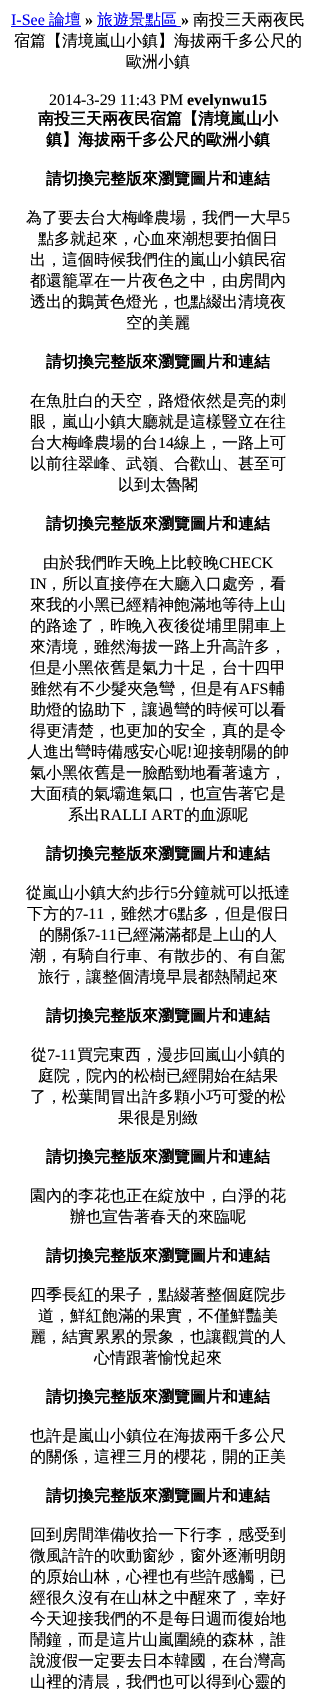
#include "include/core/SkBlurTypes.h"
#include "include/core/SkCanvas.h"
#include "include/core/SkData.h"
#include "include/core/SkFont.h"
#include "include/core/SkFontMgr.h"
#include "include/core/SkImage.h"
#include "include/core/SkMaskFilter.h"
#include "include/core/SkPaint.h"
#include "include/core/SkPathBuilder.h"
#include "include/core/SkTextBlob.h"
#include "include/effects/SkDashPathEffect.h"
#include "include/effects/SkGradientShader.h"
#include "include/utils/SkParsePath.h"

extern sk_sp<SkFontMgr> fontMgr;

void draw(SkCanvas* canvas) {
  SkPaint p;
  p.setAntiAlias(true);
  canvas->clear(SK_ColorWHITE);
  p.setColor(SkColorSetRGB(0, 0, 238));
  canvas->drawRect(SkRect::MakeLTRB(11, 26, 81, 27), p);
  canvas->drawRect(SkRect::MakeLTRB(97, 26, 181, 27), p);
  SkFont font1(fontMgr->matchFamilyStyle("Liberation Serif", SkFontStyle::Normal()), 16);
  font1.setSubpixel(true);
  canvas->drawString("I-See", 11, 25, font1, p);
  SkFont font2(fontMgr->matchFamilyStyle("WenQuanYi Zen Hei", SkFontStyle(500, SkFontStyle::kNormal_Width, SkFontStyle::kUpright_Slant)), 16);
  font2.setSubpixel(true);
  canvas->drawString("論壇", 49, 25, font2, p);
  SkFont font3(fontMgr->matchFamilyStyle("Liberation Serif", SkFontStyle::Bold()), 16);
  font3.setSubpixel(true);
  p.setColor(SK_ColorBLACK);
  canvas->drawString("»", 85, 25, font3, p);
  p.setColor(SkColorSetRGB(0, 0, 238));
  canvas->drawString("旅遊景點區", 97, 25, font2, p);
  p.setColor(SK_ColorBLACK);
  canvas->drawString("»", 181, 25, font3, p);
  canvas->drawString("南投三天兩夜民", 193, 25, font2, p);
  canvas->drawString("宿篇【清境嵐山小鎮】海拔兩千多公尺的", 14, 46, font2, p);
  canvas->drawString("歐洲小鎮", 126, 67, font2, p);
  canvas->drawString("2014-3-29 11:43 PM", 49, 105, font1, p);
  canvas->drawString("evelynwu15", 187, 105, font3, p);
  SkFont font4(fontMgr->matchFamilyStyle("WenQuanYi Zen Hei", SkFontStyle::Bold()), 16);
  font4.setSubpixel(true);
  canvas->drawString("南投三天兩夜民宿篇【清境嵐山小", 38, 124, font4, p);
  canvas->drawString("鎮】海拔兩千多公尺的歐洲小鎮", 46, 145, font4, p);
  canvas->drawString("請切換完整版來瀏覽圖片和連結", 46, 184, font4, p);
  canvas->drawString("為了要去台大梅峰農場，我們一大早", 26, 223, font2, p);
  canvas->drawString("5", 282, 223, font1, p);
  canvas->drawString("點多就起來，心血來潮想要拍個日", 38, 244, font2, p);
  canvas->drawString("出，這個時候我們住的嵐山小鎮民宿", 30, 265, font2, p);
  canvas->drawString("都還籠罩在一片夜色之中，由房間內", 30, 286, font2, p);
  canvas->drawString("透出的鵝黃色燈光，也點綴出清境夜", 30, 307, font2, p);
  canvas->drawString("空的美麗", 126, 328, font2, p);
  canvas->drawString("請切換完整版來瀏覽圖片和連結", 46, 367, font4, p);
  canvas->drawString("在魚肚白的天空，路燈依然是亮的刺", 30, 406, font2, p);
  canvas->drawString("眼，嵐山小鎮大廳就是這樣豎立在往", 30, 427, font2, p);
  canvas->drawString("台大梅峰農場的台", 30, 448, font2, p);
  canvas->drawString("14", 158, 448, font1, p);
  canvas->drawString("線上，一路上可", 174, 448, font2, p);
  canvas->drawString("以前往翠峰、武嶺、合歡山、甚至可", 30, 469, font2, p);
  canvas->drawString("以到太魯閣", 118, 490, font2, p);
  canvas->drawString("請切換完整版來瀏覽圖片和連結", 46, 529, font4, p);
  canvas->drawString("由於我們昨天晚上比較晚", 43, 568, font2, p);
  canvas->drawString("CHECK", 219, 568, font1, p);
  canvas->drawString("IN", 30, 589, font1, p);
  canvas->drawString("，所以直接停在大廳入口處旁，看", 46, 589, font2, p);
  canvas->drawString("來我的小黑已經精神飽滿地等待上山", 30, 610, font2, p);
  canvas->drawString("的路途了，昨晚入夜後從埔里開車上", 30, 631, font2, p);
  canvas->drawString("來清境，雖然海拔一路上升高許多，", 30, 652, font2, p);
  canvas->drawString("但是小黑依舊是氣力十足，台十四甲", 30, 673, font2, p);
  canvas->drawString("雖然有不少髮夾急彎，但是有", 31, 694, font2, p);
  canvas->drawString("AFS", 239, 694, font1, p);
  canvas->drawString("輔", 269, 694, font2, p);
  canvas->drawString("助燈的協助下，讓過彎的時候可以看", 30, 715, font2, p);
  canvas->drawString("得更清楚，也更加的安全，真的是令", 30, 736, font2, p);
  canvas->drawString("人進出彎時備感安心呢", 27, 757, font2, p);
  canvas->drawString("!", 187, 757, font1, p);
  canvas->drawString("迎接朝陽的帥", 193, 757, font2, p);
  canvas->drawString("氣小黑依舊是一臉酷勁地看著遠方，", 30, 778, font2, p);
  canvas->drawString("大面積的氣壩進氣口，也宣告著它是", 30, 799, font2, p);
  canvas->drawString("系出", 68, 820, font2, p);
  canvas->drawString("RALLI ART", 100, 820, font1, p);
  canvas->drawString("的血源呢", 184, 820, font2, p);
  canvas->drawString("請切換完整版來瀏覽圖片和連結", 46, 859, font4, p);
  canvas->drawString("從嵐山小鎮大約步行", 26, 898, font2, p);
  canvas->drawString("5", 170, 898, font1, p);
  canvas->drawString("分鐘就可以抵達", 178, 898, font2, p);
  canvas->drawString("下方的", 27, 919, font2, p);
  canvas->drawString("7-11", 75, 919, font1, p);
  canvas->drawString("，雖然才", 105, 919, font2, p);
  canvas->drawString("6", 169, 919, font1, p);
  canvas->drawString("點多，但是假日", 177, 919, font2, p);
  canvas->drawString("的關係", 39, 940, font2, p);
  canvas->drawString("7-11", 87, 940, font1, p);
  canvas->drawString("已經滿滿都是上山的人", 117, 940, font2, p);
  canvas->drawString("潮，有騎自行車、有散步的、有自駕", 30, 961, font2, p);
  canvas->drawString("旅行，讓整個清境早晨都熱鬧起來", 38, 982, font2, p);
  canvas->drawString("請切換完整版來瀏覽圖片和連結", 46, 1021, font4, p);
  canvas->drawString("從", 31, 1060, font2, p);
  canvas->drawString("7-11", 47, 1060, font1, p);
  canvas->drawString("買完東西，漫步回嵐山小鎮的", 77, 1060, font2, p);
  canvas->drawString("庭院，院內的松樹已經開始在結果", 38, 1081, font2, p);
  canvas->drawString("了，松葉間冒出許多顆小巧可愛的松", 30, 1102, font2, p);
  canvas->drawString("果很是別緻", 118, 1123, font2, p);
  canvas->drawString("請切換完整版來瀏覽圖片和連結", 46, 1162, font4, p);
  canvas->drawString("園內的李花也正在綻放中，白淨的花", 30, 1201, font2, p);
  canvas->drawString("辦也宣告著春天的來臨呢", 70, 1222, font2, p);
  canvas->drawString("請切換完整版來瀏覽圖片和連結", 46, 1261, font4, p);
  canvas->drawString("四季長紅的果子，點綴著整個庭院步", 30, 1300, font2, p);
  canvas->drawString("道，鮮紅飽滿的果實，不僅鮮豔美", 38, 1321, font2, p);
  canvas->drawString("麗，結實累累的景象，也讓觀賞的人", 30, 1342, font2, p);
  canvas->drawString("心情跟著愉悅起來", 94, 1363, font2, p);
  canvas->drawString("請切換完整版來瀏覽圖片和連結", 46, 1402, font4, p);
  canvas->drawString("也許是嵐山小鎮位在海拔兩千多公尺", 30, 1441, font2, p);
  canvas->drawString("的關係，這裡三月的櫻花，開的正美", 30, 1462, font2, p);
  canvas->drawString("請切換完整版來瀏覽圖片和連結", 46, 1501, font4, p);
  canvas->drawString("回到房間準備收拾一下行李，感受到", 30, 1540, font2, p);
  canvas->drawString("微風許許的吹動窗紗，窗外逐漸明朗", 30, 1561, font2, p);
  canvas->drawString("的原始山林，心裡也有些許感觸，已", 30, 1582, font2, p);
  canvas->drawString("經很久沒有在山林之中醒來了，幸好", 30, 1603, font2, p);
  canvas->drawString("今天迎接我們的不是每日週而復始地", 30, 1624, font2, p);
  canvas->drawString("鬧鐘，而是這片山嵐圍繞的森林，誰", 30, 1645, font2, p);
  canvas->drawString("說渡假一定要去日本韓國，在台灣高", 30, 1666, font2, p);
  canvas->drawString("山裡的清晨，我們也可以得到心靈的", 30, 1687, font2, p);
}
